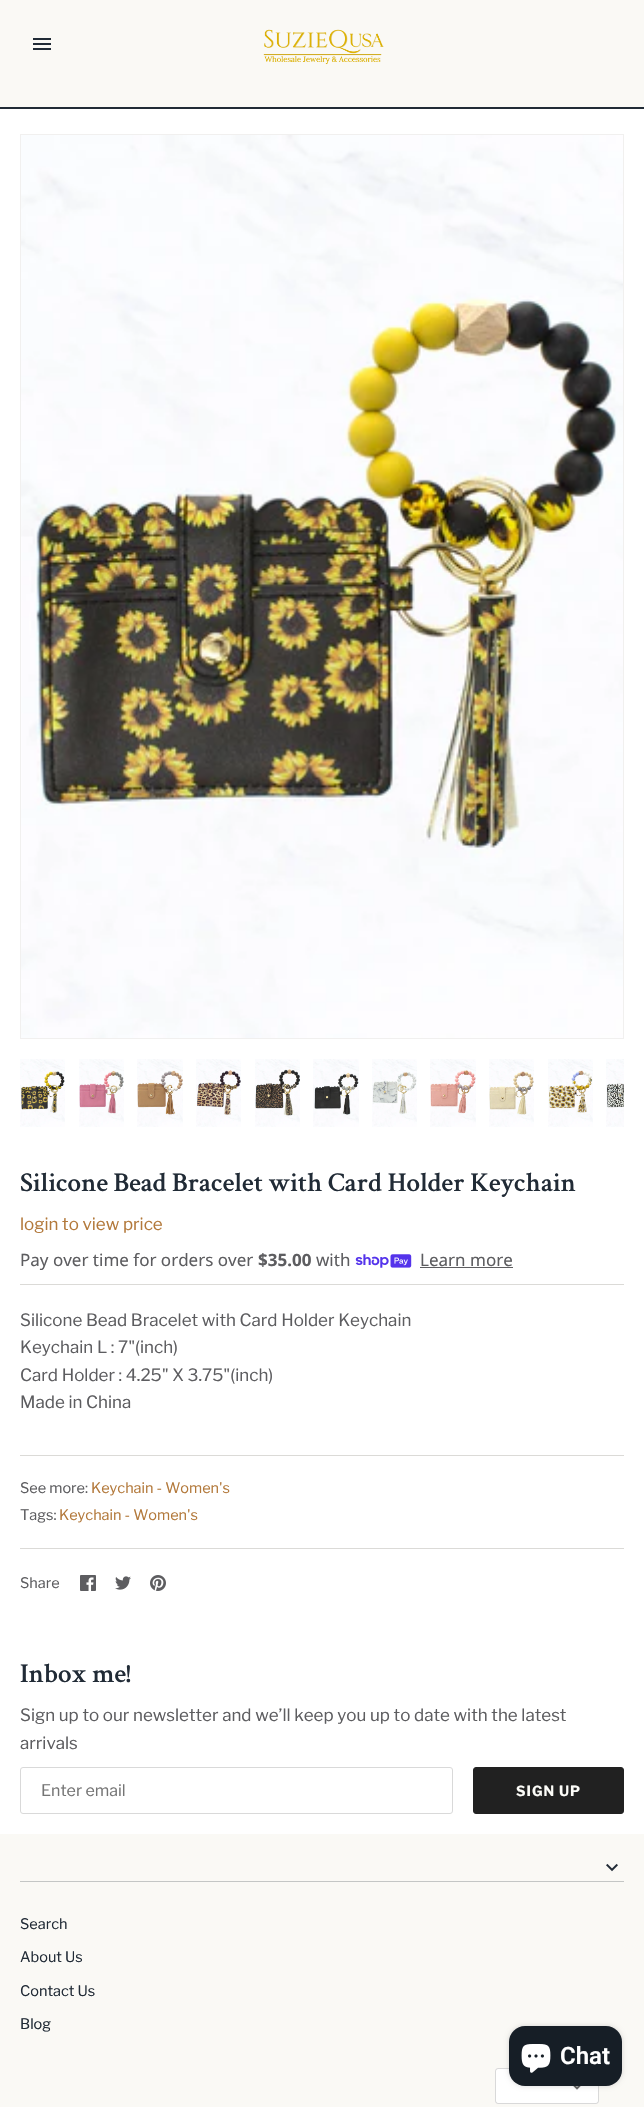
#include "include/core/SkBlurTypes.h"
#include "include/core/SkCanvas.h"
#include "include/core/SkData.h"
#include "include/core/SkFont.h"
#include "include/core/SkFontMgr.h"
#include "include/core/SkImage.h"
#include "include/core/SkMaskFilter.h"
#include "include/core/SkPaint.h"
#include "include/core/SkPathBuilder.h"
#include "include/core/SkTextBlob.h"
#include "include/effects/SkDashPathEffect.h"
#include "include/effects/SkGradientShader.h"
#include "include/utils/SkParsePath.h"

extern sk_sp<SkFontMgr> fontMgr;

void draw(SkCanvas* canvas) {
  SkPaint p;
  p.setAntiAlias(true);
  auto spacedText = [&](const char* s, float x, float y, const SkFont& font, const SkPaint& ink, float letter, float word) {
    std::vector<SkGlyphID> glyphs(font.countText(s, strlen(s), SkTextEncoding::kUTF8));
    std::vector<float> xs(glyphs.size());
    font.textToGlyphs(s, strlen(s), SkTextEncoding::kUTF8, glyphs);
    font.getXPos(glyphs, xs, x);
    float extra = 0;
    for (size_t i = 0; i < glyphs.size(); i++) {
      xs[i] += extra;
      extra += letter + word * (glyphs[i] == font.unicharToGlyph(' '));
    }
    canvas->drawTextBlob(SkTextBlob::MakeFromPosHGlyphs(glyphs, xs, y, font), 0, 0, ink);
  };
  canvas->clear(SK_ColorWHITE);
  p.setColor(SkColorSetRGB(250, 249, 245));
  canvas->drawRect(SkRect::MakeLTRB(0, 0, 644, 107), p);
  canvas->drawImageRect(SkImages::DeferredFromEncodedData(SkData::MakeFromFileName("images/1.png")), SkRect::MakeLTRB(33, 38, 51, 50), SkSamplingOptions());
  canvas->drawImageRect(SkImages::DeferredFromEncodedData(SkData::MakeFromFileName("images/2.png")), SkRect::MakeLTRB(263, 29, 384, 65), SkSamplingOptions());
  p.setColor(SkColorSetRGB(33, 43, 54));
  canvas->drawRect(SkRect::MakeLTRB(0, 107, 644, 109), p);
  p.setStyle(SkPaint::kStroke_Style);
  p.setStrokeWidth(1);
  p.setColor(SkColorSetRGB(241, 240, 239));
  canvas->drawRect(SkRect::MakeLTRB(20.5f, 134.5f, 623.5f, 1038.5f), p);
  canvas->drawImageRect(SkImages::DeferredFromEncodedData(SkData::MakeFromFileName("images/3.png")), SkRect::MakeLTRB(21, 135, 623, 1038), SkSamplingOptions());
  canvas->drawImageRect(SkImages::DeferredFromEncodedData(SkData::MakeFromFileName("images/4.png")), SkRect::MakeLTRB(20, 1059, 65, 1127), SkSamplingOptions());
  canvas->drawImageRect(SkImages::DeferredFromEncodedData(SkData::MakeFromFileName("images/5.png")), SkRect::MakeLTRB(79, 1059, 124, 1127), SkSamplingOptions());
  canvas->drawImageRect(SkImages::DeferredFromEncodedData(SkData::MakeFromFileName("images/6.png")), SkRect::MakeLTRB(137, 1059, 183, 1127), SkSamplingOptions());
  canvas->drawImageRect(SkImages::DeferredFromEncodedData(SkData::MakeFromFileName("images/7.png")), SkRect::MakeLTRB(196, 1059, 241, 1127), SkSamplingOptions());
  canvas->drawImageRect(SkImages::DeferredFromEncodedData(SkData::MakeFromFileName("images/8.png")), SkRect::MakeLTRB(255, 1059, 300, 1127), SkSamplingOptions());
  canvas->drawImageRect(SkImages::DeferredFromEncodedData(SkData::MakeFromFileName("images/9.png")), SkRect::MakeLTRB(313, 1059, 359, 1127), SkSamplingOptions());
  canvas->drawImageRect(SkImages::DeferredFromEncodedData(SkData::MakeFromFileName("images/10.png")), SkRect::MakeLTRB(372, 1059, 417, 1127), SkSamplingOptions());
  canvas->drawImageRect(SkImages::DeferredFromEncodedData(SkData::MakeFromFileName("images/11.png")), SkRect::MakeLTRB(430, 1059, 476, 1127), SkSamplingOptions());
  canvas->drawImageRect(SkImages::DeferredFromEncodedData(SkData::MakeFromFileName("images/12.png")), SkRect::MakeLTRB(489, 1059, 534, 1127), SkSamplingOptions());
  canvas->drawImageRect(SkImages::DeferredFromEncodedData(SkData::MakeFromFileName("images/13.png")), SkRect::MakeLTRB(548, 1059, 593, 1127), SkSamplingOptions());
  canvas->drawImageRect(SkImages::DeferredFromEncodedData(SkData::MakeFromFileName("images/14.png")), SkRect::MakeLTRB(606, 1059, 624, 1127), SkSamplingOptions());
  canvas->drawImageRect(SkImages::DeferredFromEncodedData(SkData::MakeFromFileName("images/15.png")), SkRect::MakeLTRB(355, 1254, 412, 1268), SkSamplingOptions());
  p.setStyle(SkPaint::kFill_Style);
  p.setColor(SkColorSetRGB(93, 93, 96));
  canvas->drawRect(SkRect::MakeLTRB(420, 1267, 513, 1268), p);
  p.setColor(SkColorSetRGB(219, 218, 215));
  canvas->drawRect(SkRect::MakeLTRB(20, 1284, 624, 1285), p);
  canvas->drawRect(SkRect::MakeLTRB(20, 1455, 624, 1456), p);
  canvas->drawRect(SkRect::MakeLTRB(20, 1548, 624, 1549), p);
  canvas->drawImageRect(SkImages::DeferredFromEncodedData(SkData::MakeFromFileName("images/16.png")), SkRect::MakeLTRB(80, 1575, 96, 1591), SkSamplingOptions());
  canvas->drawImageRect(SkImages::DeferredFromEncodedData(SkData::MakeFromFileName("images/17.png")), SkRect::MakeLTRB(115, 1576, 131, 1590), SkSamplingOptions());
  canvas->drawImageRect(SkImages::DeferredFromEncodedData(SkData::MakeFromFileName("images/18.png")), SkRect::MakeLTRB(150, 1575, 166, 1591), SkSamplingOptions());
  p.setStyle(SkPaint::kStroke_Style);
  p.setColor(SkColorSetRGB(217, 217, 217));
  canvas->drawRoundRect(SkRect::MakeLTRB(20.5f, 1767.5f, 452.5f, 1813.5f), 2.5f, 2.5f, p);
  p.setStyle(SkPaint::kFill_Style);
  p.setColor(SkColorSetRGB(33, 33, 33));
  canvas->drawRoundRect(SkRect::MakeLTRB(473.5f, 1767.5f, 623.5f, 1813.5f), 2.5f, 2.5f, p);
  p.setStyle(SkPaint::kStroke_Style);
  canvas->drawRoundRect(SkRect::MakeLTRB(473.5f, 1767.5f, 623.5f, 1813.5f), 2.5f, 2.5f, p);
  p.setStyle(SkPaint::kFill_Style);
  p.setColor(SkColorSetRGB(250, 249, 245));
  canvas->drawRect(SkRect::MakeLTRB(0, 1834, 644, 2107), p);
  p.setColor(SkColorSetRGB(196, 198, 197));
  canvas->drawRect(SkRect::MakeLTRB(20, 1881, 624, 1882), p);
  canvas->drawImageRect(SkImages::DeferredFromEncodedData(SkData::MakeFromFileName("images/19.png")), SkRect::MakeLTRB(606, 1863, 618, 1872), SkSamplingOptions());
  p.setColor(SK_ColorWHITE);
  canvas->drawRoundRect(SkRect::MakeLTRB(495, 2068, 599, 2104), 3, 3, p);
  p.setStyle(SkPaint::kStroke_Style);
  p.setColor(SkColorSetARGB(38, 0, 0, 0));
  canvas->drawRoundRect(SkRect::MakeLTRB(495.5f, 2068.5f, 598.5f, 2103.5f), 2.5f, 2.5f, p);
  canvas->drawImageRect(SkImages::DeferredFromEncodedData(SkData::MakeFromFileName("images/20.png")), SkRect::MakeLTRB(573, 2086, 581, 2090), SkSamplingOptions());
  p.setStyle(SkPaint::kFill_Style);
  p.setMaskFilter(SkMaskFilter::MakeBlur(kNormal_SkBlurStyle, 2.5f));
  canvas->drawRoundRect(SkRect::MakeLTRB(509, 2026, 622, 2086), 16, 16, p);
  p.setMaskFilter(nullptr);
  p.setColor(SkColorSetRGB(22, 30, 38));
  canvas->drawRoundRect(SkRect::MakeLTRB(509, 2026, 622, 2086), 16, 16, p);
  canvas->drawImageRect(SkImages::DeferredFromEncodedData(SkData::MakeFromFileName("images/21.png")), SkRect::MakeLTRB(521, 2044, 551, 2073), SkSamplingOptions());
  SkFont font1(fontMgr->matchFamilyStyle("Crimson Text", SkFontStyle(600, SkFontStyle::kNormal_Width, SkFontStyle::kUpright_Slant)), 27.2f);
  font1.setSubpixel(true);
  p.setColor(SkColorSetRGB(33, 43, 54));
  canvas->drawString("Silicone Bead Bracelet with Card Holder Keychain", 20, 1191, font1, p);
  SkFont font2(fontMgr->matchFamilyStyle("Libre Franklin", SkFontStyle::Normal()), 17);
  font2.setSubpixel(true);
  p.setColor(SkColorSetRGB(179, 121, 59));
  canvas->drawString("login to view price", 20, 1230, font2, p);
  SkFont font3(fontMgr->matchFamilyStyle("Noto Sans", SkFontStyle::Normal()), 17);
  font3.setSubpixel(true);
  p.setColor(SkColorSetRGB(93, 93, 96));
  canvas->drawString("Pay over time for orders over", 20, 1266, font3, p);
  SkFont font4(fontMgr->matchFamilyStyle("Noto Sans", SkFontStyle::Bold()), 17);
  font4.setSubpixel(true);
  canvas->drawString("$35.00", 258, 1266, font4, p);
  canvas->drawString("with", 316, 1266, font3, p);
  canvas->drawString("Learn more", 420, 1266, font3, p);
  canvas->drawString("Silicone Bead Bracelet with Card Holder Keychain", 20, 1326, font2, p);
  canvas->drawString("Keychain L : 7\"(inch)", 20, 1353, font2, p);
  canvas->drawString("Card Holder : 4.25\" X 3.75\"(inch)", 20, 1381, font2, p);
  canvas->drawString("Made in China", 20, 1408, font2, p);
  SkFont font5(fontMgr->matchFamilyStyle("Libre Franklin", SkFontStyle::Normal()), 14.5f);
  font5.setSubpixel(true);
  canvas->drawString("See more:", 20, 1493, font5, p);
  p.setColor(SkColorSetRGB(179, 121, 59));
  canvas->drawString("Keychain - Women's", 91, 1493, font5, p);
  p.setColor(SkColorSetRGB(93, 93, 96));
  canvas->drawString("Tags:", 20, 1520, font5, p);
  p.setColor(SkColorSetRGB(179, 121, 59));
  canvas->drawString("Keychain - Women's", 59, 1520, font5, p);
  p.setColor(SkColorSetRGB(93, 93, 96));
  canvas->drawString("Share", 20, 1588, font5, p);
  p.setColor(SkColorSetRGB(33, 43, 54));
  canvas->drawString("Inbox me!", 20, 1682, font1, p);
  p.setColor(SkColorSetRGB(93, 93, 96));
  canvas->drawString("Sign up to our newsletter and we’ll keep you up to date with the latest", 20, 1721, font2, p);
  canvas->drawString("arrivals", 20, 1749, font2, p);
  SkFont font6(fontMgr->matchFamilyStyle("Libre Franklin", SkFontStyle::Normal()), 16);
  font6.setSubpixel(true);
  p.setColor(SkColorSetRGB(117, 117, 117));
  canvas->drawString("Enter email", 41, 1796, font6, p);
  SkFont font7(fontMgr->matchFamilyStyle("Libre Franklin", SkFontStyle::Bold()), 14);
  font7.setSubpixel(true);
  p.setColor(SkColorSetRGB(253, 253, 249));
  spacedText("SIGN UP", 516, 1796, font7, p, 1, 0);
  p.setColor(SkColorSetRGB(33, 43, 54));
  canvas->drawString("Search", 20, 1929, font5, p);
  canvas->drawString("About Us", 20, 1962, font5, p);
  canvas->drawString("Contact Us", 20, 1996, font5, p);
  canvas->drawString("Blog", 20, 2029, font5, p);
  SkFont font8(fontMgr->matchFamilyStyle("Roboto", SkFontStyle(600, SkFontStyle::kNormal_Width, SkFontStyle::kUpright_Slant)), 24);
  font8.setSubpixel(true);
  p.setColor(SK_ColorWHITE);
  canvas->drawString("Chat", 560, 2064, font8, p);
}
